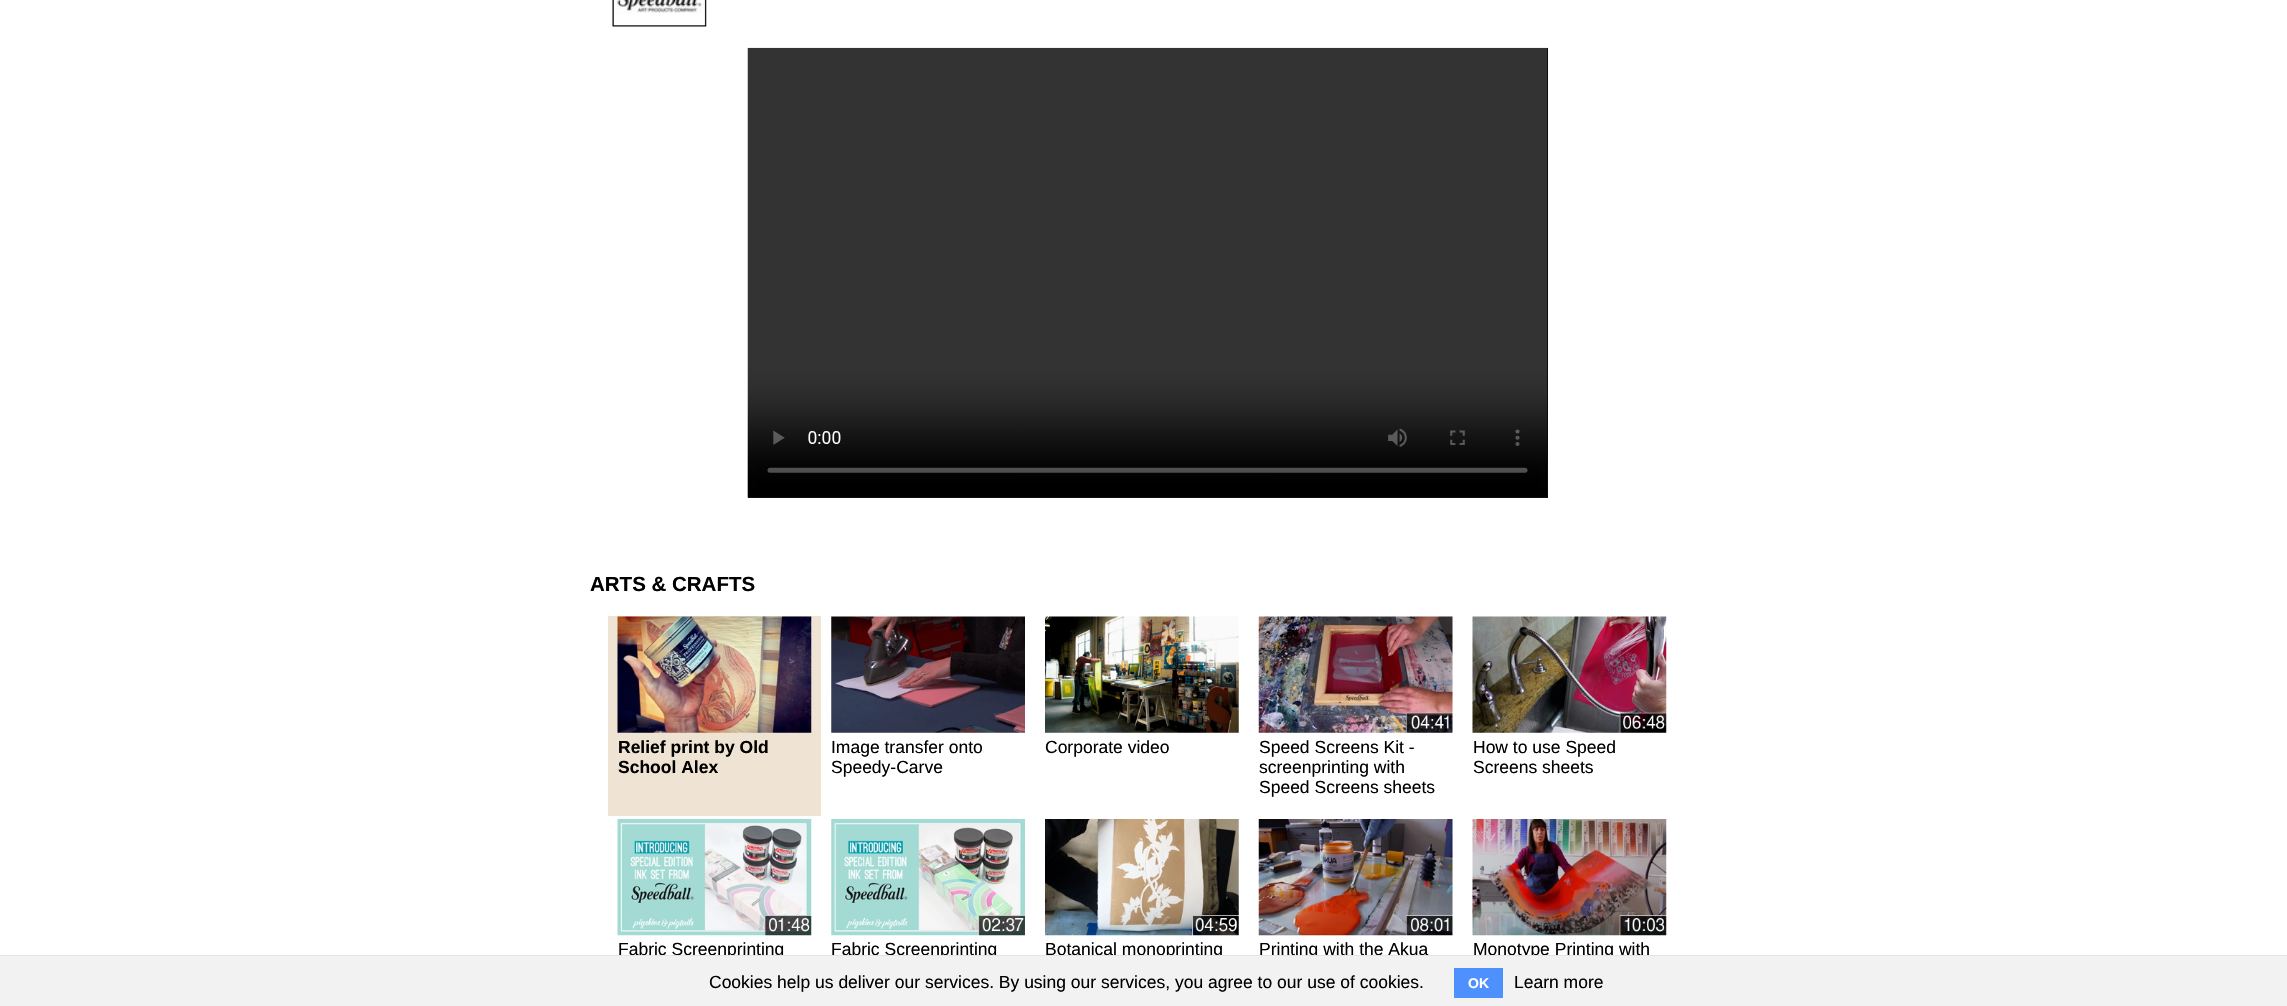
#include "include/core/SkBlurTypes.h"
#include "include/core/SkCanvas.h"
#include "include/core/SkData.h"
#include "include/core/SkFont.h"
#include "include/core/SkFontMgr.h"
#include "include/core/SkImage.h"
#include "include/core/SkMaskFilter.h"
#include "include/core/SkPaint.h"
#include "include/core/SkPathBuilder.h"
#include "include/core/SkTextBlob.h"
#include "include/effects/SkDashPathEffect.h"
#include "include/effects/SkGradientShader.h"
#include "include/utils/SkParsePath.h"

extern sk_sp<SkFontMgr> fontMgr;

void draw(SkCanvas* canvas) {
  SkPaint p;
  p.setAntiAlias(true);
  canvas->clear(SK_ColorWHITE);
  canvas->drawImageRect(SkImages::DeferredFromEncodedData(SkData::MakeFromFileName("images/1.png")), SkRect::MakeLTRB(612, 0, 707, 27), SkSamplingOptions());
  p.setColor(SK_ColorBLACK);
  canvas->drawRect(SkRect::MakeLTRB(748, 48, 1548, 498), p);
  canvas->drawImageRect(SkImages::DeferredFromEncodedData(SkData::MakeFromFileName("images/2.png")), SkRect::MakeLTRB(747, 47, 1548, 498), SkSamplingOptions());
  p.setColor(SkColorSetRGB(239, 228, 211));
  canvas->drawRect(SkRect::MakeLTRB(608, 616, 821, 816), p);
  canvas->drawImageRect(SkImages::DeferredFromEncodedData(SkData::MakeFromFileName("images/3.png")), SkRect::MakeLTRB(617, 616, 812, 733), SkSamplingOptions());
  canvas->drawImageRect(SkImages::DeferredFromEncodedData(SkData::MakeFromFileName("images/4.png")), SkRect::MakeLTRB(831, 616, 1025, 733), SkSamplingOptions());
  canvas->drawImageRect(SkImages::DeferredFromEncodedData(SkData::MakeFromFileName("images/5.png")), SkRect::MakeLTRB(1045, 616, 1239, 733), SkSamplingOptions());
  canvas->drawImageRect(SkImages::DeferredFromEncodedData(SkData::MakeFromFileName("images/6.png")), SkRect::MakeLTRB(1258, 616, 1453, 733), SkSamplingOptions());
  canvas->drawImageRect(SkImages::DeferredFromEncodedData(SkData::MakeFromFileName("images/7.png")), SkRect::MakeLTRB(1472, 616, 1667, 733), SkSamplingOptions());
  canvas->drawImageRect(SkImages::DeferredFromEncodedData(SkData::MakeFromFileName("images/8.png")), SkRect::MakeLTRB(617, 819, 812, 936), SkSamplingOptions());
  canvas->drawImageRect(SkImages::DeferredFromEncodedData(SkData::MakeFromFileName("images/9.png")), SkRect::MakeLTRB(831, 819, 1025, 936), SkSamplingOptions());
  canvas->drawImageRect(SkImages::DeferredFromEncodedData(SkData::MakeFromFileName("images/10.png")), SkRect::MakeLTRB(1045, 819, 1239, 936), SkSamplingOptions());
  canvas->drawImageRect(SkImages::DeferredFromEncodedData(SkData::MakeFromFileName("images/11.png")), SkRect::MakeLTRB(1258, 819, 1453, 936), SkSamplingOptions());
  canvas->drawImageRect(SkImages::DeferredFromEncodedData(SkData::MakeFromFileName("images/12.png")), SkRect::MakeLTRB(1472, 819, 1667, 936), SkSamplingOptions());
  SkFont font1(fontMgr->matchFamilyStyle("Liberation Sans", SkFontStyle::Bold()), 20.5f);
  font1.setSubpixel(true);
  p.setColor(SK_ColorBLACK);
  canvas->drawString("ARTS & CRAFTS", 590, 591, font1, p);
  SkFont font2(fontMgr->matchFamilyStyle("Liberation Sans", SkFontStyle::Bold()), 17.5f);
  font2.setSubpixel(true);
  canvas->drawString("Relief print by Old", 618, 753, font2, p);
  canvas->drawString("School Alex", 618, 773, font2, p);
  SkFont font3(fontMgr->matchFamilyStyle("Liberation Sans", SkFontStyle::Normal()), 17.5f);
  font3.setSubpixel(true);
  canvas->drawString("Image transfer onto", 831, 753, font3, p);
  canvas->drawString("Speedy-Carve", 831, 773, font3, p);
  canvas->drawString("Corporate video", 1045, 753, font3, p);
  canvas->drawString("Speed Screens Kit -", 1259, 753, font3, p);
  canvas->drawString("screenprinting with", 1259, 773, font3, p);
  canvas->drawString("Speed Screens sheets", 1259, 793, font3, p);
  canvas->drawString("How to use Speed", 1473, 753, font3, p);
  canvas->drawString("Screens sheets", 1473, 773, font3, p);
  canvas->drawString("Fabric Screenprinting", 618, 955, font3, p);
  canvas->drawString("Fabric Screenprinting", 831, 955, font3, p);
  canvas->drawString("Botanical monoprinting", 1045, 955, font3, p);
  canvas->drawString("Printing with the Akua", 1259, 955, font3, p);
  canvas->drawString("Monotype Printing with", 1473, 955, font3, p);
  p.setColor(SkColorSetRGB(242, 242, 242));
  canvas->drawRect(SkRect::MakeLTRB(0, 956, 2287, 1006), p);
  p.setColor(SkColorSetRGB(228, 228, 228));
  canvas->drawRect(SkRect::MakeLTRB(0, 955, 2287, 956), p);
  p.setColor(SK_ColorBLACK);
  canvas->drawString("Cookies help us deliver our services. By using our services, you agree to our use of cookies.", 709, 988, font3, p);
  p.setColor(SkColorSetRGB(77, 144, 254));
  canvas->drawRect(SkRect::MakeLTRB(1454, 968, 1503, 998), p);
  SkFont font4(fontMgr->matchFamilyStyle("Liberation Sans", SkFontStyle::Bold()), 14);
  font4.setSubpixel(true);
  p.setColor(SK_ColorWHITE);
  canvas->drawString("OK", 1468, 988, font4, p);
  p.setColor(SK_ColorBLACK);
  canvas->drawString("Learn more", 1514, 988, font3, p);
}
